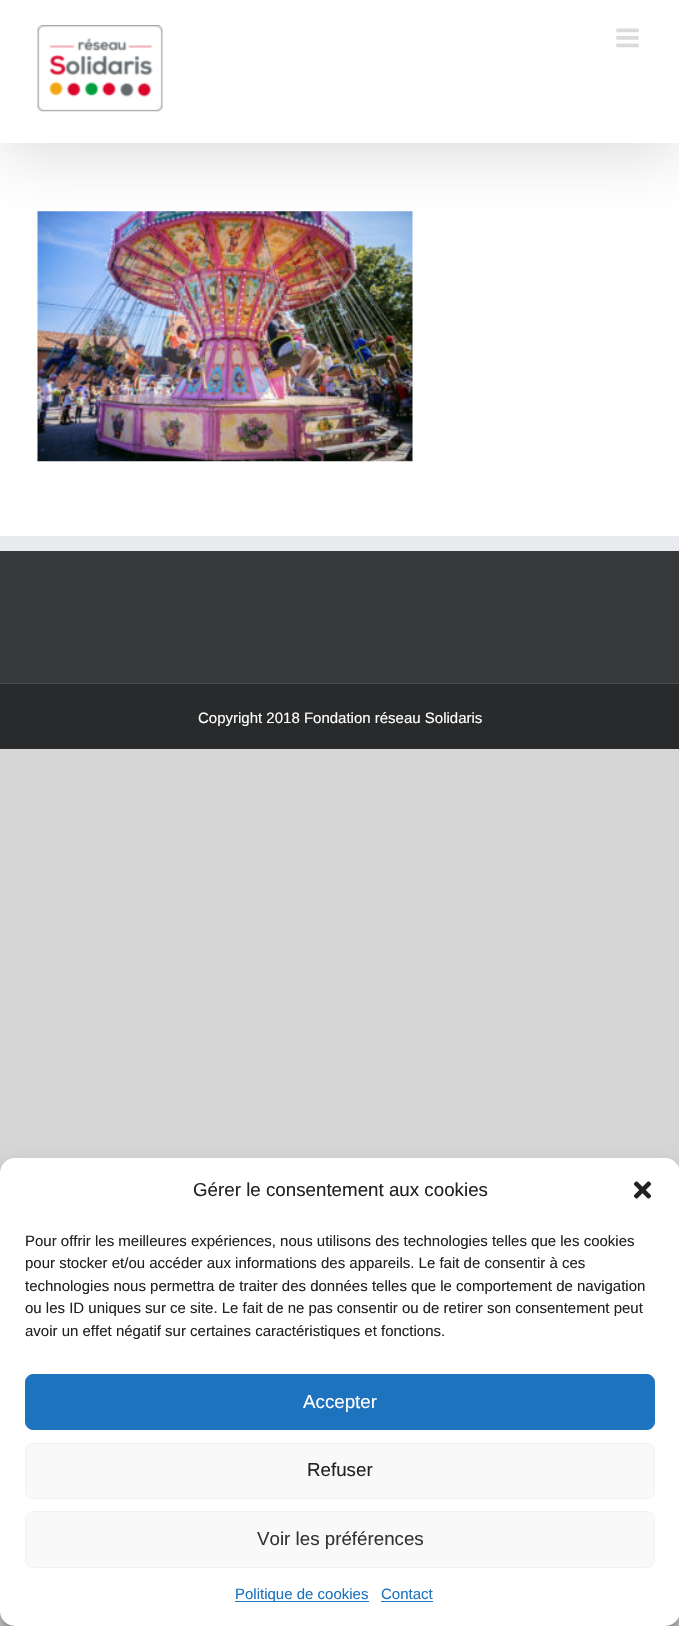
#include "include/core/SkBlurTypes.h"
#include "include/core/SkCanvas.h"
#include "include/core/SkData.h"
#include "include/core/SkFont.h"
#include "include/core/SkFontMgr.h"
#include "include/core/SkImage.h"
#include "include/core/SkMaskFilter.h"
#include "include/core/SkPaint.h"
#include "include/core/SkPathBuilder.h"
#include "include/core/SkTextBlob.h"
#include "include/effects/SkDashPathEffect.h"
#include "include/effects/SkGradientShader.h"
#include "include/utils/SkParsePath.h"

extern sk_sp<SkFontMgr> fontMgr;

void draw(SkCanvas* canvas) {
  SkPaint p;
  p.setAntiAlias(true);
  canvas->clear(SkColorSetRGB(215, 214, 214));
  p.setColor(SK_ColorWHITE);
  canvas->drawRect(SkRect::MakeLTRB(0, 143, 679, 536), p);
  canvas->drawImageRect(SkImages::DeferredFromEncodedData(SkData::MakeFromFileName("images/3.png")), SkRect::MakeLTRB(37, 211, 413, 462), SkSamplingOptions());
  p.setColor(SkColorSetARGB(36, 0, 0, 0));
  p.setMaskFilter(SkMaskFilter::MakeBlur(kNormal_SkBlurStyle, 31));
  canvas->drawRect(SkRect::MakeLTRB(3, 15, 678, 153), p);
  p.setMaskFilter(nullptr);
  p.setColor(SK_ColorWHITE);
  canvas->drawRect(SkRect::MakeLTRB(0, 0, 679, 143), p);
  canvas->drawImageRect(SkImages::DeferredFromEncodedData(SkData::MakeFromFileName("images/1.png")), SkRect::MakeLTRB(37, 25, 163, 112), SkSamplingOptions());
  canvas->drawImageRect(SkImages::DeferredFromEncodedData(SkData::MakeFromFileName("images/2.png")), SkRect::MakeLTRB(616, 28, 639, 48), SkSamplingOptions());
  p.setColor(SkColorSetRGB(54, 56, 57));
  canvas->drawRect(SkRect::MakeLTRB(0, 551, 679, 683), p);
  p.setColor(SkColorSetRGB(233, 234, 238));
  canvas->drawRect(SkRect::MakeLTRB(0, 536, 679, 551), p);
  p.setColor(SkColorSetRGB(40, 42, 43));
  canvas->drawRect(SkRect::MakeLTRB(0, 684, 679, 749), p);
  p.setColor(SkColorSetRGB(75, 76, 77));
  canvas->drawRect(SkRect::MakeLTRB(0, 683, 679, 684), p);
  p.setColor(SkColorSetARGB(59, 0, 0, 0));
  p.setMaskFilter(SkMaskFilter::MakeBlur(kNormal_SkBlurStyle, 4));
  canvas->drawRoundRect(SkRect::MakeLTRB(0, 1165, 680, 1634), 15, 15, p);
  p.setMaskFilter(nullptr);
  p.setColor(SkColorSetARGB(48, 0, 0, 0));
  p.setMaskFilter(SkMaskFilter::MakeBlur(kNormal_SkBlurStyle, 12.5f));
  canvas->drawRoundRect(SkRect::MakeLTRB(0, 1170, 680, 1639), 15, 15, p);
  p.setMaskFilter(nullptr);
  p.setColor(SK_ColorWHITE);
  canvas->drawRoundRect(SkRect::MakeLTRB(0, 1158, 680, 1626), 15, 15, p);
  canvas->drawImageRect(SkImages::DeferredFromEncodedData(SkData::MakeFromFileName("images/4.png")), SkRect::MakeLTRB(633, 1181, 652, 1199), SkSamplingOptions());
  p.setColor(SkColorSetRGB(30, 115, 190));
  canvas->drawRoundRect(SkRect::MakeLTRB(25.5f, 1374.5f, 654.5f, 1429.5f), 7.5f, 7.5f, p);
  p.setStyle(SkPaint::kStroke_Style);
  p.setStrokeWidth(1);
  canvas->drawRoundRect(SkRect::MakeLTRB(25.5f, 1374.5f, 654.5f, 1429.5f), 7.5f, 7.5f, p);
  p.setStyle(SkPaint::kFill_Style);
  p.setColor(SkColorSetRGB(249, 249, 249));
  canvas->drawRoundRect(SkRect::MakeLTRB(25.5f, 1443.5f, 654.5f, 1498.5f), 7.5f, 7.5f, p);
  p.setStyle(SkPaint::kStroke_Style);
  p.setColor(SkColorSetRGB(242, 242, 242));
  canvas->drawRoundRect(SkRect::MakeLTRB(25.5f, 1443.5f, 654.5f, 1498.5f), 7.5f, 7.5f, p);
  p.setStyle(SkPaint::kFill_Style);
  p.setColor(SkColorSetRGB(249, 249, 249));
  canvas->drawRoundRect(SkRect::MakeLTRB(25.5f, 1511.5f, 654.5f, 1567.5f), 7.5f, 7.5f, p);
  p.setStyle(SkPaint::kStroke_Style);
  p.setColor(SkColorSetRGB(242, 242, 242));
  canvas->drawRoundRect(SkRect::MakeLTRB(25.5f, 1511.5f, 654.5f, 1567.5f), 7.5f, 7.5f, p);
  p.setStyle(SkPaint::kFill_Style);
  p.setColor(SkColorSetRGB(30, 115, 190));
  canvas->drawRect(SkRect::MakeLTRB(235, 1601, 369, 1602), p);
  canvas->drawRect(SkRect::MakeLTRB(381, 1601, 433, 1602), p);
  SkFont font1(fontMgr->matchFamilyStyle("Liberation Sans", SkFontStyle::Normal()), 15);
  font1.setSubpixel(true);
  p.setColor(SK_ColorWHITE);
  canvas->drawString("Copyright 2018 Fondation réseau Solidaris", 198, 723, font1, p);
  SkFont font2(fontMgr->matchFamilyStyle("Liberation Sans", SkFontStyle::Normal()), 18.75f);
  font2.setSubpixel(true);
  p.setColor(SkColorSetRGB(34, 34, 34));
  canvas->drawString("Gérer le consentement aux cookies", 193, 1196, font2, p);
  canvas->drawString("Pour offrir les meilleures expériences, nous utilisons des technologies telles que les cookies", 25, 1246, font1, p);
  canvas->drawString("pour stocker et/ou accéder aux informations des appareils. Le fait de consentir à ces", 25, 1268, font1, p);
  canvas->drawString("technologies nous permettra de traiter des données telles que le comportement de navigation", 25, 1291, font1, p);
  canvas->drawString("ou les ID uniques sur ce site. Le fait de ne pas consentir ou de retirer son consentement peut", 25, 1313, font1, p);
  canvas->drawString("avoir un effet négatif sur certaines caractéristiques et fonctions.", 25, 1336, font1, p);
  p.setColor(SK_ColorWHITE);
  canvas->drawString("Accepter", 303, 1408, font2, p);
  p.setColor(SkColorSetRGB(34, 34, 34));
  canvas->drawString("Refuser", 307, 1476, font2, p);
  p.setColor(SkColorSetRGB(51, 51, 51));
  canvas->drawString("Voir les préférences", 257, 1545, font2, p);
  p.setColor(SkColorSetRGB(30, 115, 190));
  canvas->drawString("Politique de cookies", 235, 1599, font1, p);
  canvas->drawString("Contact", 381, 1599, font1, p);
}
